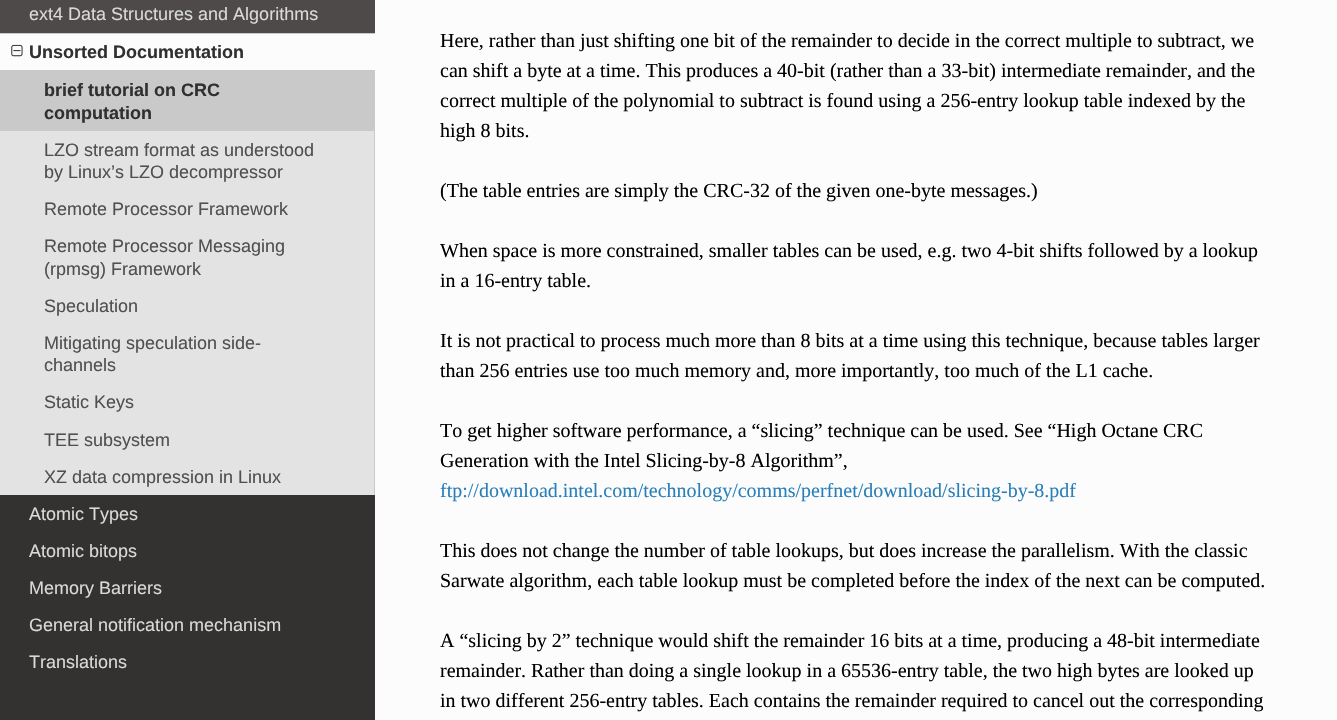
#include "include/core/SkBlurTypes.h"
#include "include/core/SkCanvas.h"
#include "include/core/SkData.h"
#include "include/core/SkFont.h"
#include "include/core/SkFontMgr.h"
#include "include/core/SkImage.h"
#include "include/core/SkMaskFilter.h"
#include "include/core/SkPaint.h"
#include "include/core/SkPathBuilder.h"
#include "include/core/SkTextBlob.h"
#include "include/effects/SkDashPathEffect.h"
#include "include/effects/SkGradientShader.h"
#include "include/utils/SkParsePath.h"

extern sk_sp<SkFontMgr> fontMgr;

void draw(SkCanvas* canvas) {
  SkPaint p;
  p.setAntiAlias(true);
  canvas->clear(SkColorSetRGB(252, 252, 252));
  p.setColor(SkColorSetRGB(52, 49, 49));
  canvas->drawRect(SkRect::MakeLTRB(0, 495, 375, 720), p);
  p.setColor(SkColorSetRGB(78, 74, 74));
  canvas->drawRect(SkRect::MakeLTRB(0, 0, 375, 33), p);
  p.setColor(SkColorSetRGB(227, 227, 227));
  canvas->drawRect(SkRect::MakeLTRB(0, 131, 374, 495), p);
  p.setColor(SkColorSetRGB(201, 201, 201));
  canvas->drawRect(SkRect::MakeLTRB(0, 33, 375, 34), p);
  canvas->drawRect(SkRect::MakeLTRB(0, 70, 375, 131), p);
  canvas->drawImageRect(SkImages::DeferredFromEncodedData(SkData::MakeFromFileName("images/1.png")), SkRect::MakeLTRB(11, 44, 23, 57), SkSamplingOptions());
  canvas->drawRect(SkRect::MakeLTRB(374, 131, 375, 495), p);
  SkFont font1(fontMgr->matchFamilyStyle("Liberation Sans", SkFontStyle::Normal()), 18);
  font1.setSubpixel(true);
  p.setColor(SkColorSetRGB(217, 217, 217));
  canvas->drawString("ext4 Data Structures and Algorithms", 29, 20, font1, p);
  SkFont font2(fontMgr->matchFamilyStyle("Liberation Sans", SkFontStyle::Bold()), 18);
  font2.setSubpixel(true);
  p.setColor(SkColorSetRGB(48, 48, 48));
  canvas->drawString("Unsorted Documentation", 29, 58, font2, p);
  canvas->drawString("brief tutorial on CRC", 44, 96, font2, p);
  canvas->drawString("computation", 44, 119, font2, p);
  p.setColor(SkColorSetRGB(80, 80, 80));
  canvas->drawString("LZO stream format as understood", 44, 156, font1, p);
  canvas->drawString("by Linux’s LZO decompressor", 44, 178, font1, p);
  canvas->drawString("Remote Processor Framework", 44, 215, font1, p);
  canvas->drawString("Remote Processor Messaging", 44, 252, font1, p);
  canvas->drawString("(rpmsg) Framework", 44, 275, font1, p);
  canvas->drawString("Speculation", 44, 312, font1, p);
  canvas->drawString("Mitigating speculation side-", 44, 349, font1, p);
  canvas->drawString("channels", 44, 371, font1, p);
  canvas->drawString("Static Keys", 44, 408, font1, p);
  canvas->drawString("TEE subsystem", 44, 446, font1, p);
  canvas->drawString("XZ data compression in Linux", 44, 483, font1, p);
  p.setColor(SkColorSetRGB(217, 217, 217));
  canvas->drawString("Atomic Types", 29, 520, font1, p);
  canvas->drawString("Atomic bitops", 29, 557, font1, p);
  canvas->drawString("Memory Barriers", 29, 594, font1, p);
  canvas->drawString("General notification mechanism", 29, 631, font1, p);
  canvas->drawString("Translations", 29, 668, font1, p);
  SkFont font3(fontMgr->matchFamilyStyle("Liberation Serif", SkFontStyle::Normal()), 20);
  font3.setSubpixel(true);
  p.setColor(SK_ColorBLACK);
  canvas->drawString("Here, rather than just shifting one bit of the remainder to decide in the correct multiple to subtract, we", 440, 47, font3, p);
  canvas->drawString("can shift a byte at a time. This produces a 40-bit (rather than a 33-bit) intermediate remainder, and the", 440, 77, font3, p);
  canvas->drawString("correct multiple of the polynomial to subtract is found using a 256-entry lookup table indexed by the", 440, 107, font3, p);
  canvas->drawString("high 8 bits.", 440, 137, font3, p);
  canvas->drawString("(The table entries are simply the CRC-32 of the given one-byte messages.)", 440, 197, font3, p);
  canvas->drawString("When space is more constrained, smaller tables can be used, e.g. two 4-bit shifts followed by a lookup", 440, 257, font3, p);
  canvas->drawString("in a 16-entry table.", 440, 287, font3, p);
  canvas->drawString("It is not practical to process much more than 8 bits at a time using this technique, because tables larger", 440, 347, font3, p);
  canvas->drawString("than 256 entries use too much memory and, more importantly, too much of the L1 cache.", 440, 377, font3, p);
  canvas->drawString("To get higher software performance, a “slicing” technique can be used. See “High Octane CRC", 440, 437, font3, p);
  canvas->drawString("Generation with the Intel Slicing-by-8 Algorithm”,", 440, 467, font3, p);
  p.setColor(SkColorSetRGB(41, 128, 185));
  canvas->drawString("ftp://download.intel.com/technology/comms/perfnet/download/slicing-by-8.pdf", 440, 497, font3, p);
  p.setColor(SK_ColorBLACK);
  canvas->drawString("This does not change the number of table lookups, but does increase the parallelism. With the classic", 440, 557, font3, p);
  canvas->drawString("Sarwate algorithm, each table lookup must be completed before the index of the next can be computed.", 440, 587, font3, p);
  canvas->drawString("A “slicing by 2” technique would shift the remainder 16 bits at a time, producing a 48-bit intermediate", 440, 647, font3, p);
  canvas->drawString("remainder. Rather than doing a single lookup in a 65536-entry table, the two high bytes are looked up", 440, 677, font3, p);
  canvas->drawString("in two different 256-entry tables. Each contains the remainder required to cancel out the corresponding", 440, 707, font3, p);
}
